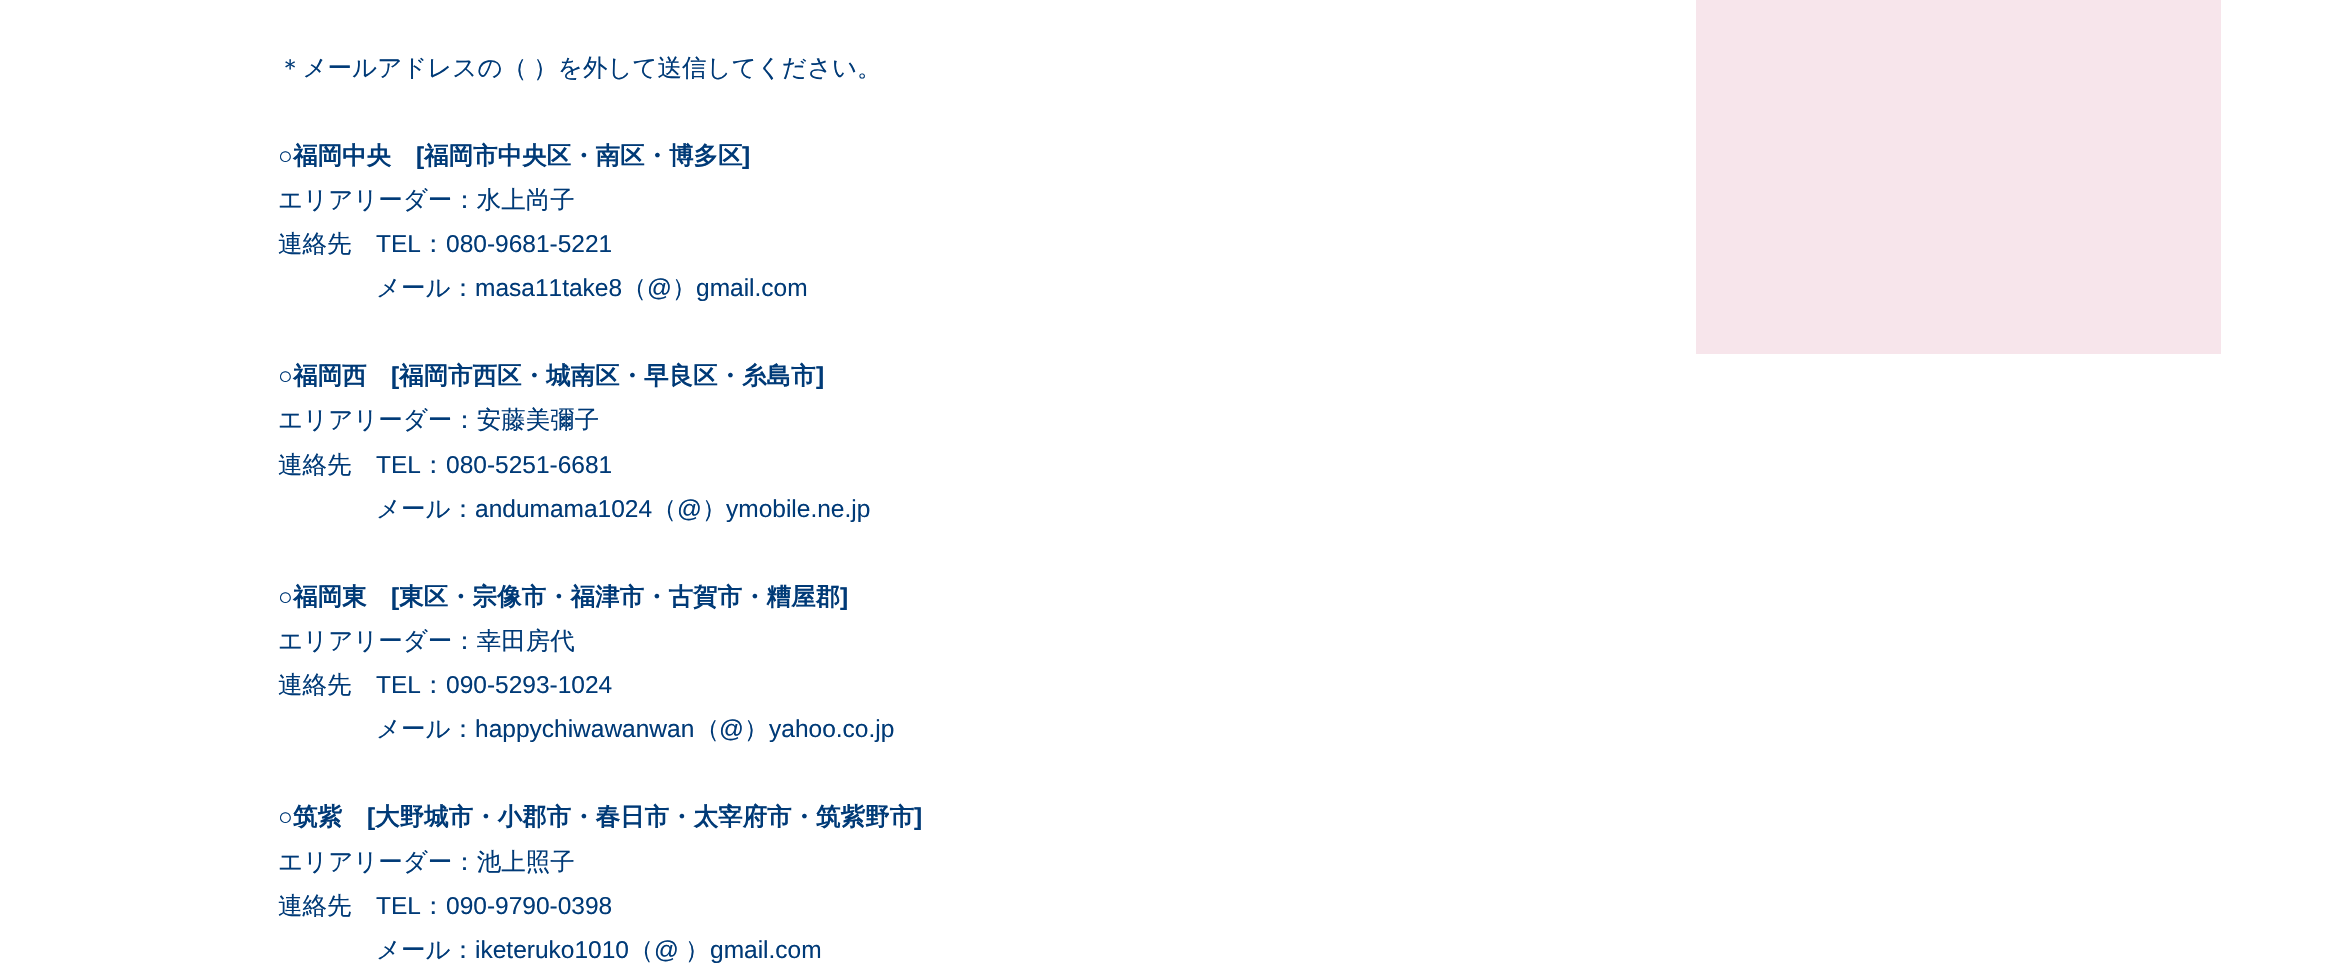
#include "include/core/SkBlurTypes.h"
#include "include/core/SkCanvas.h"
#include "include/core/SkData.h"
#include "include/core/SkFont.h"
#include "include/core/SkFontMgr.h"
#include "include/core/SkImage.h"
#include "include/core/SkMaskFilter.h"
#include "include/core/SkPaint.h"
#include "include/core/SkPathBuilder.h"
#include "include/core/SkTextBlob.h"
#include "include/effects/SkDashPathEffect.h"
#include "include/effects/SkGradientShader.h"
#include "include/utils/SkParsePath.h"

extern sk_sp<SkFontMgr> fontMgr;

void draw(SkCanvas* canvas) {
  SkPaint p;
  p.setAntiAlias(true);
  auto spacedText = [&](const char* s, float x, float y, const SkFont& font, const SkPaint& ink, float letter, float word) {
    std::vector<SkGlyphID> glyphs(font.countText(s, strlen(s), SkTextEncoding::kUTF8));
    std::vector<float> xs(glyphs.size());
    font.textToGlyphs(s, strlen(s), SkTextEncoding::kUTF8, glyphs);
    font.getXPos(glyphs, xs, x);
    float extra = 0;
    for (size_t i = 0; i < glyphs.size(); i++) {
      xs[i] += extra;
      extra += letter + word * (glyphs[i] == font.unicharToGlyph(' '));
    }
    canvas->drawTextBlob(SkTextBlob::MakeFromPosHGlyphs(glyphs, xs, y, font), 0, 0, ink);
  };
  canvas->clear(SK_ColorWHITE);
  p.setColor(SkColorSetRGB(247, 229, 235));
  canvas->drawRect(SkRect::MakeLTRB(1696, 0, 2221, 354), p);
  SkFont font1(fontMgr->matchFamilyStyle("WenQuanYi Zen Hei", SkFontStyle(500, SkFontStyle::kNormal_Width, SkFontStyle::kUpright_Slant)), 24.5f);
  font1.setSubpixel(true);
  p.setColor(SkColorSetRGB(0, 58, 119));
  spacedText("＊メールアドレスの（ ）を外して送信してください。", 278, 76, font1, p, 0, -1);
  SkFont font2(fontMgr->matchFamilyStyle("Liberation Sans", SkFontStyle::Bold()), 24.5f);
  font2.setSubpixel(true);
  canvas->drawString("○", 278, 164, font2, p);
  SkFont font3(fontMgr->matchFamilyStyle("WenQuanYi Zen Hei", SkFontStyle::Bold()), 24.5f);
  font3.setSubpixel(true);
  canvas->drawString("福岡中央", 293, 164, font3, p);
  canvas->drawString("[", 416, 164, font2, p);
  canvas->drawString("福岡市中央区・南区・博多区", 424, 164, font3, p);
  canvas->drawString("]", 742, 164, font2, p);
  canvas->drawString("エリアリーダー：水上尚子", 278, 208, font1, p);
  canvas->drawString("連絡先", 278, 252, font1, p);
  SkFont font4(fontMgr->matchFamilyStyle("Liberation Sans", SkFontStyle::Normal()), 24.5f);
  font4.setSubpixel(true);
  canvas->drawString("TEL", 376, 252, font4, p);
  canvas->drawString("：", 421, 252, font1, p);
  canvas->drawString("080-9681-5221", 446, 252, font4, p);
  canvas->drawString("メール：", 376, 296, font1, p);
  canvas->drawString("masa11take8", 475, 296, font4, p);
  canvas->drawString("（", 622, 296, font1, p);
  canvas->drawString("@", 647, 296, font4, p);
  canvas->drawString("）", 672, 296, font1, p);
  canvas->drawString("gmail.com", 696, 296, font4, p);
  canvas->drawString("○", 278, 384, font2, p);
  canvas->drawString("福岡西", 293, 384, font3, p);
  canvas->drawString("[", 391, 384, font2, p);
  canvas->drawString("福岡市西区・城南区・早良区・糸島市", 399, 384, font3, p);
  canvas->drawString("]", 816, 384, font2, p);
  canvas->drawString("エリアリーダー：安藤美彌子", 278, 428, font1, p);
  canvas->drawString("連絡先", 278, 473, font1, p);
  canvas->drawString("TEL", 376, 473, font4, p);
  canvas->drawString("：", 421, 473, font1, p);
  canvas->drawString("080-5251-6681", 446, 473, font4, p);
  canvas->drawString("メール：", 376, 517, font1, p);
  canvas->drawString("andumama1024", 475, 517, font4, p);
  canvas->drawString("（", 652, 517, font1, p);
  canvas->drawString("@", 677, 517, font4, p);
  canvas->drawString("）", 702, 517, font1, p);
  canvas->drawString("ymobile.ne.jp", 726, 517, font4, p);
  canvas->drawString("○", 278, 605, font2, p);
  canvas->drawString("福岡東", 293, 605, font3, p);
  canvas->drawString("[", 391, 605, font2, p);
  canvas->drawString("東区・宗像市・福津市・古賀市・糟屋郡", 399, 605, font3, p);
  canvas->drawString("]", 840, 605, font2, p);
  canvas->drawString("エリアリーダー：幸田房代", 278, 649, font1, p);
  canvas->drawString("連絡先", 278, 693, font1, p);
  canvas->drawString("TEL", 376, 693, font4, p);
  canvas->drawString("：", 421, 693, font1, p);
  canvas->drawString("090-5293-1024", 446, 693, font4, p);
  canvas->drawString("メール：", 376, 737, font1, p);
  canvas->drawString("happychiwawanwan", 475, 737, font4, p);
  canvas->drawString("（", 695, 737, font1, p);
  canvas->drawString("@", 719, 737, font4, p);
  canvas->drawString("）", 744, 737, font1, p);
  canvas->drawString("yahoo.co.jp", 769, 737, font4, p);
  canvas->drawString("○", 278, 825, font2, p);
  canvas->drawString("筑紫", 293, 825, font3, p);
  canvas->drawString("[", 367, 825, font2, p);
  canvas->drawString("大野城市・小郡市・春日市・太宰府市・筑紫野市", 375, 825, font3, p);
  canvas->drawString("]", 914, 825, font2, p);
  canvas->drawString("エリアリーダー：池上照子", 278, 870, font1, p);
  canvas->drawString("連絡先", 278, 914, font1, p);
  canvas->drawString("TEL", 376, 914, font4, p);
  canvas->drawString("：", 421, 914, font1, p);
  canvas->drawString("090-9790-0398", 446, 914, font4, p);
  canvas->drawString("メール：", 376, 958, font1, p);
  canvas->drawString("iketeruko1010", 475, 958, font4, p);
  canvas->drawString("（", 629, 958, font1, p);
  canvas->drawString("@", 654, 958, font4, p);
  canvas->drawString("）", 685, 958, font1, p);
  canvas->drawString("gmail.com", 710, 958, font4, p);
}
